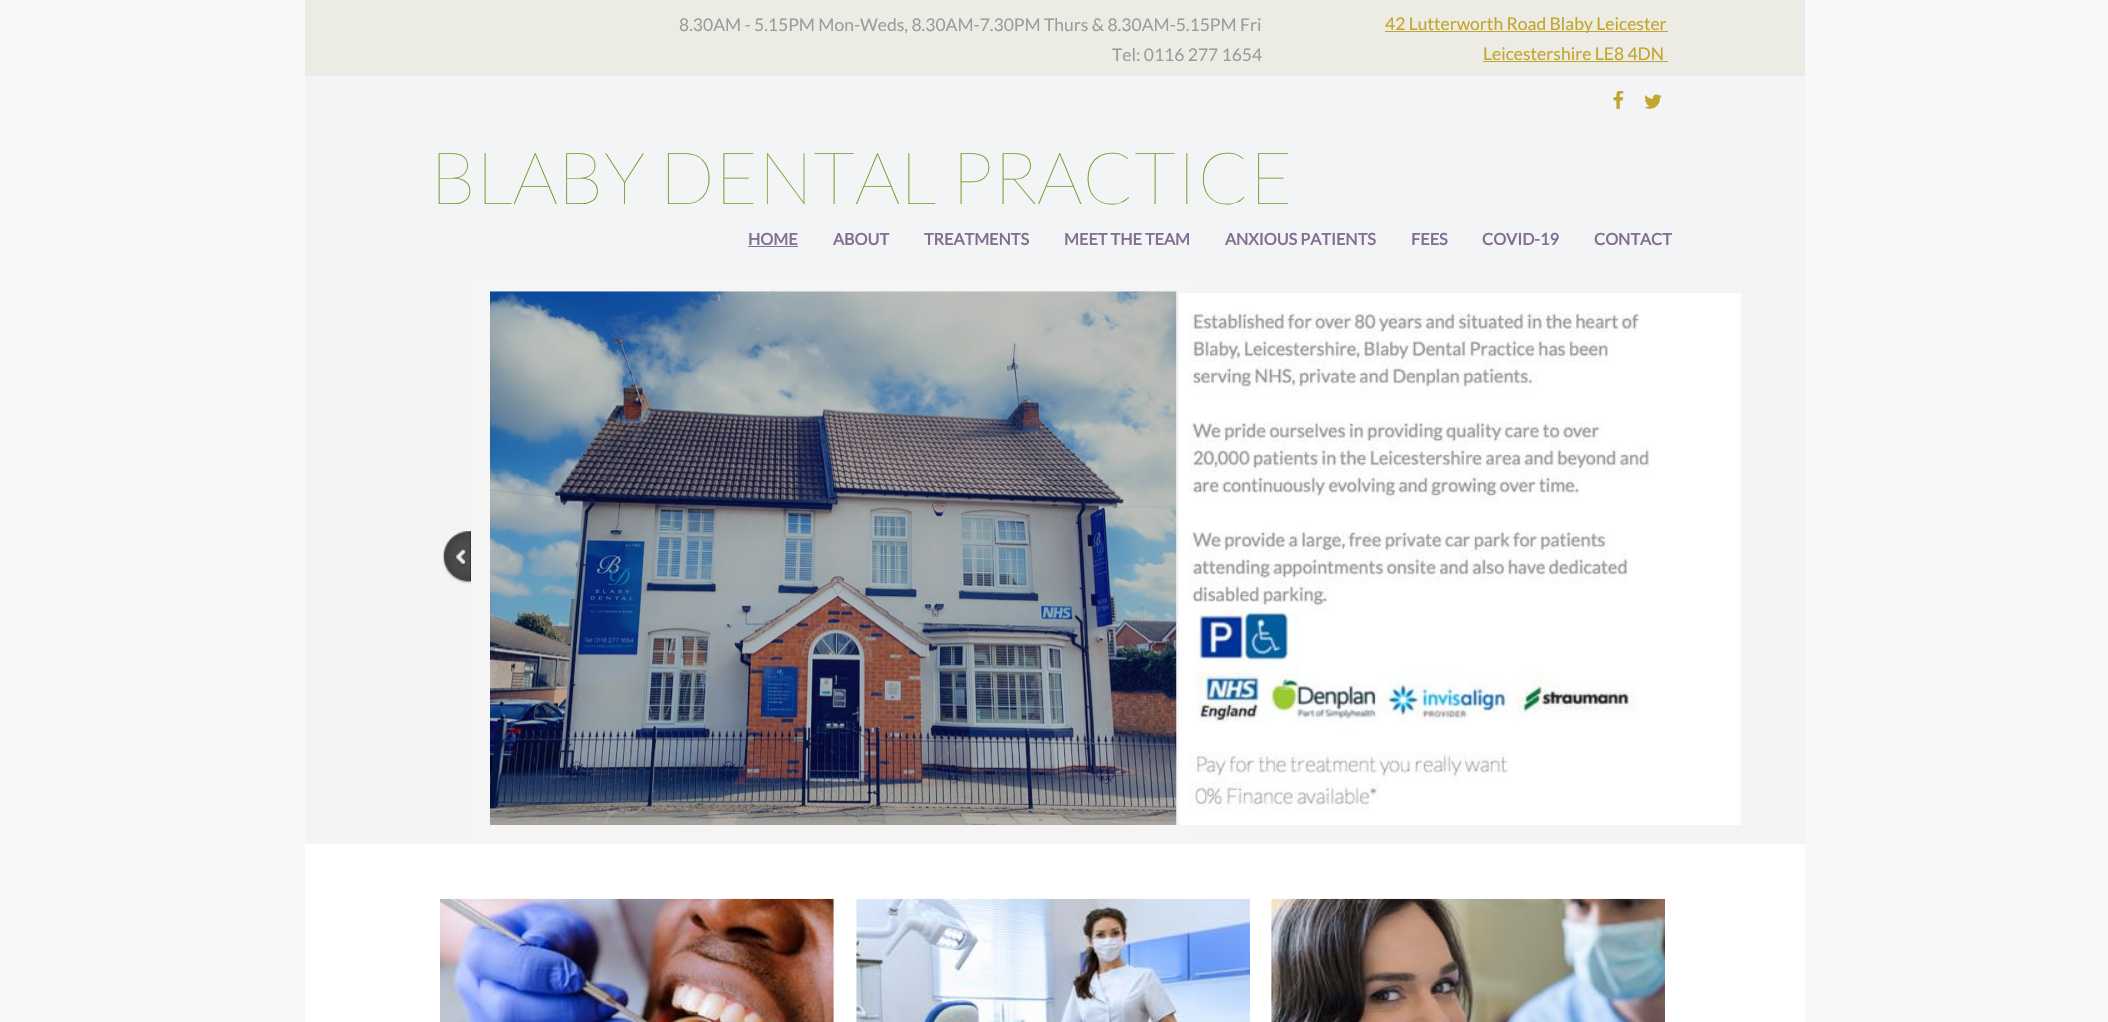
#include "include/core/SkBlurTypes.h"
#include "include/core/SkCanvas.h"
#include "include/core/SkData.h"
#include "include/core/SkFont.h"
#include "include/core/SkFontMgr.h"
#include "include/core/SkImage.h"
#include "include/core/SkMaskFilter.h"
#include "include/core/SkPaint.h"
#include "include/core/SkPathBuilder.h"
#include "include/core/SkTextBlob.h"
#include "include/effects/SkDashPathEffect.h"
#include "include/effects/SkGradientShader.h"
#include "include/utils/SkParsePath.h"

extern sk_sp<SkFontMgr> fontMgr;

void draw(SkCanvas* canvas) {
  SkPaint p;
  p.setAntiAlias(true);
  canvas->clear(SkColorSetRGB(249, 247, 250));
  p.setColor(SK_ColorWHITE);
  canvas->drawRect(SkRect::MakeLTRB(305, 844, 1805, 1022), p);
  p.setColor(SkColorSetRGB(237, 236, 228));
  canvas->drawRect(SkRect::MakeLTRB(305, 0, 1805, 76), p);
  p.setColor(SkColorSetRGB(193, 165, 46));
  canvas->drawRect(SkRect::MakeLTRB(1385, 31, 1668, 32), p);
  canvas->drawRect(SkRect::MakeLTRB(1483, 61, 1668, 62), p);
  p.setColor(SkColorSetRGB(242, 244, 245));
  canvas->drawRect(SkRect::MakeLTRB(305, 76, 1805, 844), p);
  canvas->drawImageRect(SkImages::DeferredFromEncodedData(SkData::MakeFromFileName("images/1.png")), SkRect::MakeLTRB(1613, 91, 1624, 109), SkSamplingOptions());
  canvas->drawImageRect(SkImages::DeferredFromEncodedData(SkData::MakeFromFileName("images/2.png")), SkRect::MakeLTRB(1644, 94, 1662, 109), SkSamplingOptions());
  p.setColor(SkColorSetRGB(131, 111, 148));
  canvas->drawRect(SkRect::MakeLTRB(748, 246, 798, 247), p);
  canvas->drawImageRect(SkImages::DeferredFromEncodedData(SkData::MakeFromFileName("images/3.png")), SkRect::MakeLTRB(443, 531, 471, 584), SkSamplingOptions());
  p.setStyle(SkPaint::kStroke_Style);
  p.setStrokeWidth(19);
  p.setColor(SkColorSetRGB(245, 245, 245));
  canvas->drawRect(SkRect::MakeLTRB(480.5f, 282.5f, 1185.5f, 834.5f), p);
  canvas->drawImageRect(SkImages::DeferredFromEncodedData(SkData::MakeFromFileName("images/4.png")), SkRect::MakeLTRB(490, 291, 1177, 825), SkSamplingOptions());
  canvas->drawImageRect(SkImages::DeferredFromEncodedData(SkData::MakeFromFileName("images/5.png")), SkRect::MakeLTRB(1179, 293, 1741, 825), SkSamplingOptions());
  canvas->drawImageRect(SkImages::DeferredFromEncodedData(SkData::MakeFromFileName("images/6.png")), SkRect::MakeLTRB(440, 898, 834, 1022), SkSamplingOptions());
  canvas->drawImageRect(SkImages::DeferredFromEncodedData(SkData::MakeFromFileName("images/7.png")), SkRect::MakeLTRB(856, 898, 1250, 1022), SkSamplingOptions());
  canvas->drawImageRect(SkImages::DeferredFromEncodedData(SkData::MakeFromFileName("images/8.png")), SkRect::MakeLTRB(1271, 898, 1665, 1022), SkSamplingOptions());
  SkFont font1(fontMgr->matchFamilyStyle("Lato", SkFontStyle::Normal()), 17.5f);
  font1.setSubpixel(true);
  p.setStyle(SkPaint::kFill_Style);
  p.setColor(SkColorSetRGB(156, 156, 156));
  canvas->drawString("8.30AM - 5.15PM Mon-Weds, 8.30AM-7.30PM Thurs & 8.30AM-5.15PM Fri", 679, 31, font1, p);
  canvas->drawString("Tel: 0116 277 1654", 1112, 61, font1, p);
  p.setColor(SkColorSetRGB(193, 165, 46));
  canvas->drawString("42 Lutterworth Road Blaby Leicester", 1385, 30, font1, p);
  canvas->drawString("Leicestershire LE8 4DN", 1483, 60, font1, p);
  SkFont font2(fontMgr->matchFamilyStyle("Lato", SkFontStyle(100, SkFontStyle::kNormal_Width, SkFontStyle::kUpright_Slant)), 72.5f);
  font2.setSubpixel(true);
  p.setColor(SkColorSetRGB(129, 153, 45));
  canvas->drawString("BLABY DENTAL PRACTICE", 430, 204, font2, p);
  SkFont font3(fontMgr->matchFamilyStyle("Lato", SkFontStyle::Bold()), 16.25f);
  font3.setSubpixel(true);
  p.setColor(SkColorSetRGB(131, 111, 148));
  canvas->drawString("HOME", 748, 245, font3, p);
  canvas->drawString("ABOUT", 833, 245, font3, p);
  canvas->drawString("TREATMENTS", 924, 245, font3, p);
  canvas->drawString("MEET THE TEAM", 1064, 245, font3, p);
  canvas->drawString("ANXIOUS PATIENTS", 1225, 245, font3, p);
  canvas->drawString("FEES", 1411, 245, font3, p);
  canvas->drawString("COVID-19", 1482, 245, font3, p);
  canvas->drawString("CONTACT", 1594, 245, font3, p);
}
